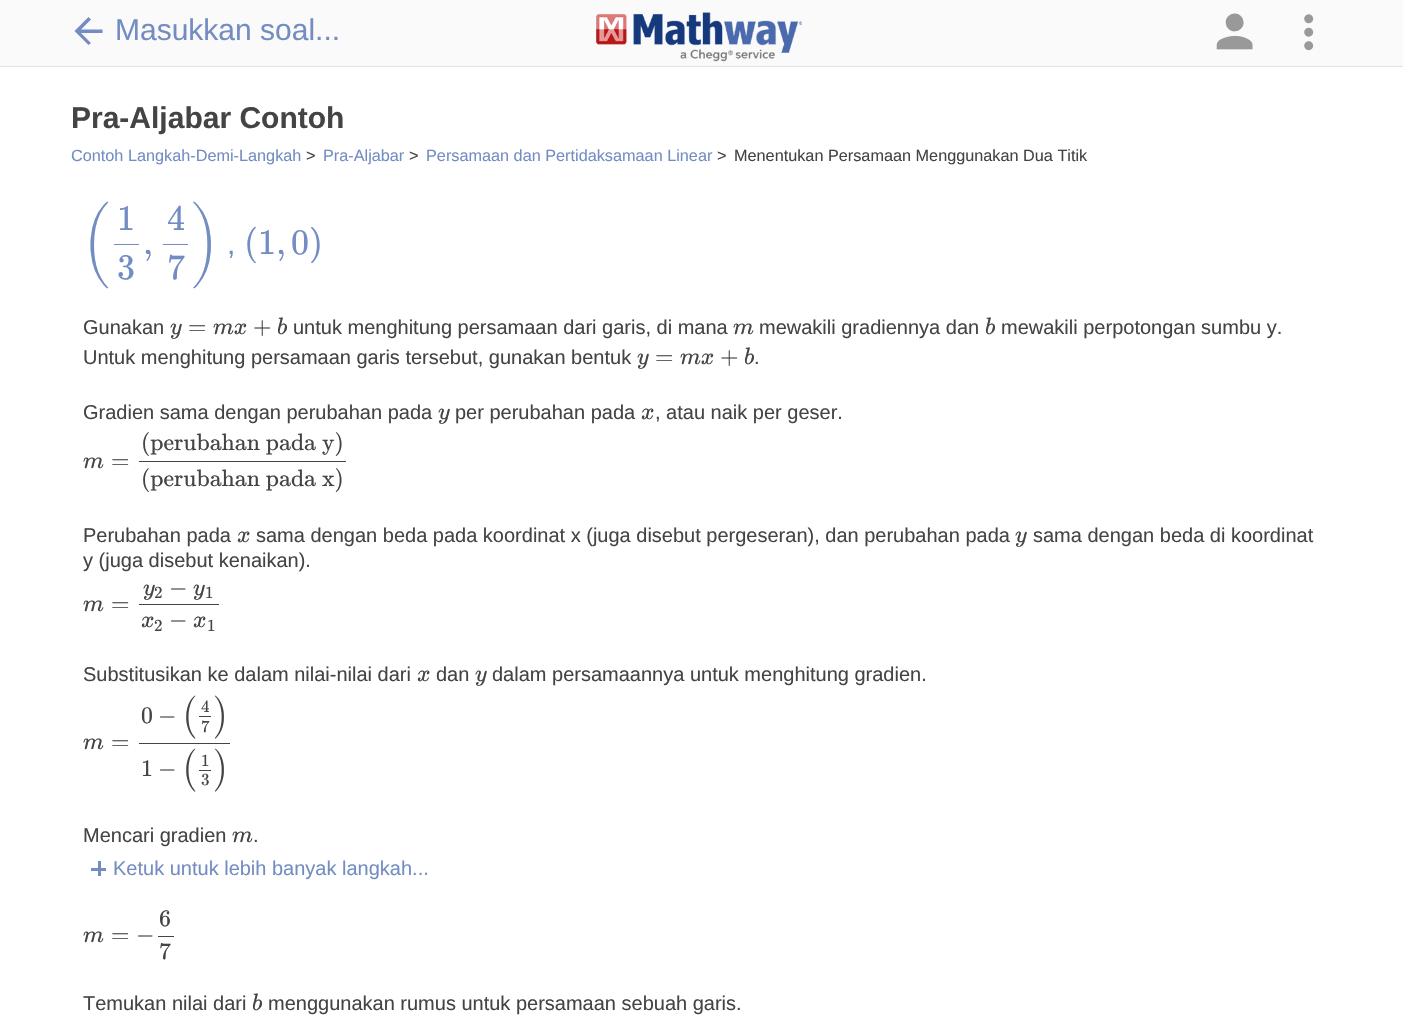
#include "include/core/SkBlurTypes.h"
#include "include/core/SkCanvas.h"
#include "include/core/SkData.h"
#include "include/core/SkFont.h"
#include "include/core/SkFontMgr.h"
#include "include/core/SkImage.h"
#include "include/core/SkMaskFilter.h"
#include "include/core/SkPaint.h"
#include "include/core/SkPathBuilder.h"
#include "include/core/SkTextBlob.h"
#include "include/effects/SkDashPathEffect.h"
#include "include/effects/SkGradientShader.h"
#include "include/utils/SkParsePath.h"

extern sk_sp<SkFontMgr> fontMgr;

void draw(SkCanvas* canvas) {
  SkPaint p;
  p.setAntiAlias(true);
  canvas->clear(SK_ColorWHITE);
  p.setColor(SkColorSetRGB(225, 225, 225));
  canvas->drawRect(SkRect::MakeLTRB(0, 66, 1403, 67), p);
  p.setColor(SkColorSetRGB(250, 250, 250));
  canvas->drawRect(SkRect::MakeLTRB(0, 0, 1403, 66), p);
  p.setColor(SkColorSetRGB(115, 141, 195));
  canvas->drawPath(SkPathBuilder().moveTo(88.5f, 17).lineTo(74.5f, 31).lineTo(88.5f, 45).lineTo(91, 43).lineTo(81, 33).lineTo(102.5f, 33).lineTo(102.5f, 29.5f).lineTo(81, 29.5f).lineTo(91, 19.5f).close().detach(), p);
  canvas->drawImageRect(SkImages::DeferredFromEncodedData(SkData::MakeFromFileName("images/1.png")), SkRect::MakeLTRB(596, 12, 802, 62), SkSamplingOptions());
  canvas->drawImageRect(SkImages::DeferredFromEncodedData(SkData::MakeFromFileName("images/2.png")), SkRect::MakeLTRB(1216, 13, 1253, 50), SkSamplingOptions());
  canvas->drawImageRect(SkImages::DeferredFromEncodedData(SkData::MakeFromFileName("images/3.png")), SkRect::MakeLTRB(1304, 14, 1314, 51), SkSamplingOptions());
  canvas->drawRect(SkRect::MakeLTRB(114, 244, 139, 245), p);
  canvas->drawRect(SkRect::MakeLTRB(163, 244, 188, 245), p);
  p.setColor(SkColorSetRGB(68, 68, 68));
  canvas->drawRect(SkRect::MakeLTRB(139, 461, 346, 462), p);
  canvas->drawRect(SkRect::MakeLTRB(139, 604, 219, 605), p);
  canvas->drawRect(SkRect::MakeLTRB(199, 716, 211, 717), p);
  canvas->drawRect(SkRect::MakeLTRB(139, 743, 230, 744), p);
  canvas->drawRect(SkRect::MakeLTRB(199, 770, 211, 771), p);
  p.setColor(SkColorSetRGB(115, 141, 195));
  canvas->drawRect(SkRect::MakeLTRB(98, 861, 101, 876), p);
  canvas->drawRect(SkRect::MakeLTRB(91, 868, 106, 871), p);
  p.setColor(SkColorSetRGB(68, 68, 68));
  canvas->drawRect(SkRect::MakeLTRB(158, 936, 174, 937), p);
  SkFont font1(fontMgr->matchFamilyStyle("Liberation Sans", SkFontStyle::Normal()), 30);
  font1.setSubpixel(true);
  p.setColor(SkColorSetRGB(115, 141, 195));
  canvas->drawString("Masukkan soal...", 115, 40, font1, p);
  SkFont font2(fontMgr->matchFamilyStyle("Liberation Sans", SkFontStyle::Bold()), 30);
  font2.setSubpixel(true);
  p.setColor(SkColorSetRGB(68, 68, 68));
  canvas->drawString("Pra-Aljabar Contoh", 71, 128, font2, p);
  SkFont font3(fontMgr->matchFamilyStyle("Liberation Sans", SkFontStyle::Normal()), 16.25f);
  font3.setSubpixel(true);
  p.setColor(SkColorSetRGB(115, 141, 195));
  canvas->drawString("Contoh Langkah-Demi-Langkah", 71, 161, font3, p);
  p.setColor(SkColorSetRGB(68, 68, 68));
  canvas->drawString(">", 306, 161, font3, p);
  p.setColor(SkColorSetRGB(115, 141, 195));
  canvas->drawString("Pra-Aljabar", 323, 161, font3, p);
  p.setColor(SkColorSetRGB(68, 68, 68));
  canvas->drawString(">", 409, 161, font3, p);
  p.setColor(SkColorSetRGB(115, 141, 195));
  canvas->drawString("Persamaan dan Pertidaksamaan Linear", 426, 161, font3, p);
  p.setColor(SkColorSetRGB(68, 68, 68));
  canvas->drawString(">", 717, 161, font3, p);
  canvas->drawString("Menentukan Persamaan Menggunakan Dua Titik", 734, 161, font3, p);
  SkFont font4(fontMgr->matchFamilyStyle("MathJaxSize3", SkFontStyle::Normal()), 36);
  font4.setSubpixel(true);
  p.setColor(SkColorSetRGB(115, 141, 195));
  canvas->drawString("(", 83, 254, font4, p);
  SkFont font5(fontMgr->matchFamilyStyle("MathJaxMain", SkFontStyle::Normal()), 36);
  font5.setSubpixel(true);
  canvas->drawString("1", 117, 230, font5, p);
  canvas->drawString("3", 117, 279, font5, p);
  canvas->drawString(",", 143, 254, font5, p);
  canvas->drawString("4", 167, 230, font5, p);
  canvas->drawString("7", 167, 279, font5, p);
  canvas->drawString(")", 192, 254, font4, p);
  canvas->drawString(",", 227, 254, font1, p);
  canvas->drawString("(1,", 244, 254, font5, p);
  canvas->drawString("0)", 291, 254, font5, p);
  SkFont font6(fontMgr->matchFamilyStyle("Liberation Sans", SkFontStyle::Normal()), 20);
  font6.setSubpixel(true);
  p.setColor(SkColorSetRGB(68, 68, 68));
  canvas->drawString("Gunakan", 83, 334, font6, p);
  SkFont font7(fontMgr->matchFamilyStyle("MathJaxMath", SkFontStyle::Italic()), 23.75f);
  font7.setSubpixel(true);
  canvas->drawString("y", 170, 334, font7, p);
  SkFont font8(fontMgr->matchFamilyStyle("MathJaxMain", SkFontStyle::Normal()), 23.75f);
  font8.setSubpixel(true);
  canvas->drawString("=", 188, 334, font8, p);
  canvas->drawString("mx", 213, 334, font7, p);
  canvas->drawString("+", 253, 334, font8, p);
  canvas->drawString("b", 277, 334, font7, p);
  canvas->drawString("untuk menghitung persamaan dari garis, di mana", 293, 334, font6, p);
  canvas->drawString("m", 733, 334, font7, p);
  canvas->drawString("mewakili gradiennya dan", 759, 334, font6, p);
  canvas->drawString("b", 985, 334, font7, p);
  canvas->drawString("mewakili perpotongan sumbu y.", 1001, 334, font6, p);
  canvas->drawString("Untuk menghitung persamaan garis tersebut, gunakan bentuk", 83, 364, font6, p);
  canvas->drawString("y", 637, 364, font7, p);
  canvas->drawString("=", 655, 364, font8, p);
  canvas->drawString("mx", 680, 364, font7, p);
  canvas->drawString("+", 720, 364, font8, p);
  canvas->drawString("b", 744, 364, font7, p);
  canvas->drawString(".", 754, 364, font6, p);
  canvas->drawString("Gradien sama dengan perubahan pada", 83, 419, font6, p);
  canvas->drawString("y", 438, 419, font7, p);
  canvas->drawString("per perubahan pada", 455, 419, font6, p);
  canvas->drawString("x", 641, 419, font7, p);
  canvas->drawString(", atau naik per geser.", 655, 419, font6, p);
  canvas->drawString("m", 83, 468, font7, p);
  canvas->drawString("=", 111, 468, font8, p);
  canvas->drawString("(perubahan pada y)", 141, 450, font8, p);
  canvas->drawString("(perubahan pada x)", 141, 486, font8, p);
  canvas->drawString("Perubahan pada", 83, 542, font6, p);
  canvas->drawString("x", 237, 542, font7, p);
  canvas->drawString("sama dengan beda pada koordinat x (juga disebut pergeseran), dan perubahan pada", 256, 542, font6, p);
  canvas->drawString("y", 1015, 542, font7, p);
  canvas->drawString("sama dengan beda di koordinat", 1033, 542, font6, p);
  canvas->drawString("y (juga disebut kenaikan).", 83, 567, font6, p);
  canvas->drawString("m", 83, 611, font7, p);
  canvas->drawString("=", 111, 611, font8, p);
  canvas->drawString("y", 143, 595, font7, p);
  SkFont font9(fontMgr->matchFamilyStyle("MathJaxMain", SkFontStyle::Normal()), 17);
  font9.setSubpixel(true);
  canvas->drawString("2", 154, 598, font9, p);
  canvas->drawString("−", 169, 595, font8, p);
  canvas->drawString("y", 193, 595, font7, p);
  canvas->drawString("1", 205, 598, font9, p);
  canvas->drawString("x", 141, 627, font7, p);
  canvas->drawString("2", 154, 631, font9, p);
  canvas->drawString("−", 169, 627, font8, p);
  canvas->drawString("x", 193, 627, font7, p);
  canvas->drawString("1", 207, 631, font9, p);
  canvas->drawString("Substitusikan ke dalam nilai-nilai dari", 83, 681, font6, p);
  canvas->drawString("x", 417, 681, font7, p);
  canvas->drawString("dan", 436, 681, font6, p);
  canvas->drawString("y", 475, 681, font7, p);
  canvas->drawString("dalam persamaannya untuk menghitung gradien.", 492, 681, font6, p);
  canvas->drawString("m", 83, 749, font7, p);
  canvas->drawString("=", 111, 749, font8, p);
  canvas->drawString("0", 141, 723, font8, p);
  canvas->drawString("−", 158, 723, font8, p);
  SkFont font10(fontMgr->matchFamilyStyle("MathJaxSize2", SkFontStyle::Normal()), 23.75f);
  font10.setSubpixel(true);
  canvas->drawString("(", 182, 723, font10, p);
  canvas->drawString("4", 201, 712, font9, p);
  canvas->drawString("7", 201, 732, font9, p);
  canvas->drawString(")", 214, 723, font10, p);
  canvas->drawString("1", 141, 776, font8, p);
  canvas->drawString("−", 158, 776, font8, p);
  canvas->drawString("(", 182, 776, font10, p);
  canvas->drawString("1", 201, 766, font9, p);
  canvas->drawString("3", 201, 785, font9, p);
  canvas->drawString(")", 214, 776, font10, p);
  canvas->drawString("Mencari gradien", 83, 842, font6, p);
  canvas->drawString("m", 232, 842, font7, p);
  canvas->drawString(".", 253, 842, font6, p);
  p.setColor(SkColorSetRGB(115, 141, 195));
  canvas->drawString("Ketuk untuk lebih banyak langkah...", 113, 875, font6, p);
  p.setColor(SkColorSetRGB(68, 68, 68));
  canvas->drawString("m", 83, 942, font7, p);
  canvas->drawString("=", 111, 942, font8, p);
  canvas->drawString("−", 136, 942, font8, p);
  canvas->drawString("6", 159, 926, font8, p);
  canvas->drawString("7", 159, 959, font8, p);
  canvas->drawString("Temukan nilai dari", 83, 1010, font6, p);
  canvas->drawString("b", 252, 1010, font7, p);
  canvas->drawString("menggunakan rumus untuk persamaan sebuah garis.", 268, 1010, font6, p);
}
